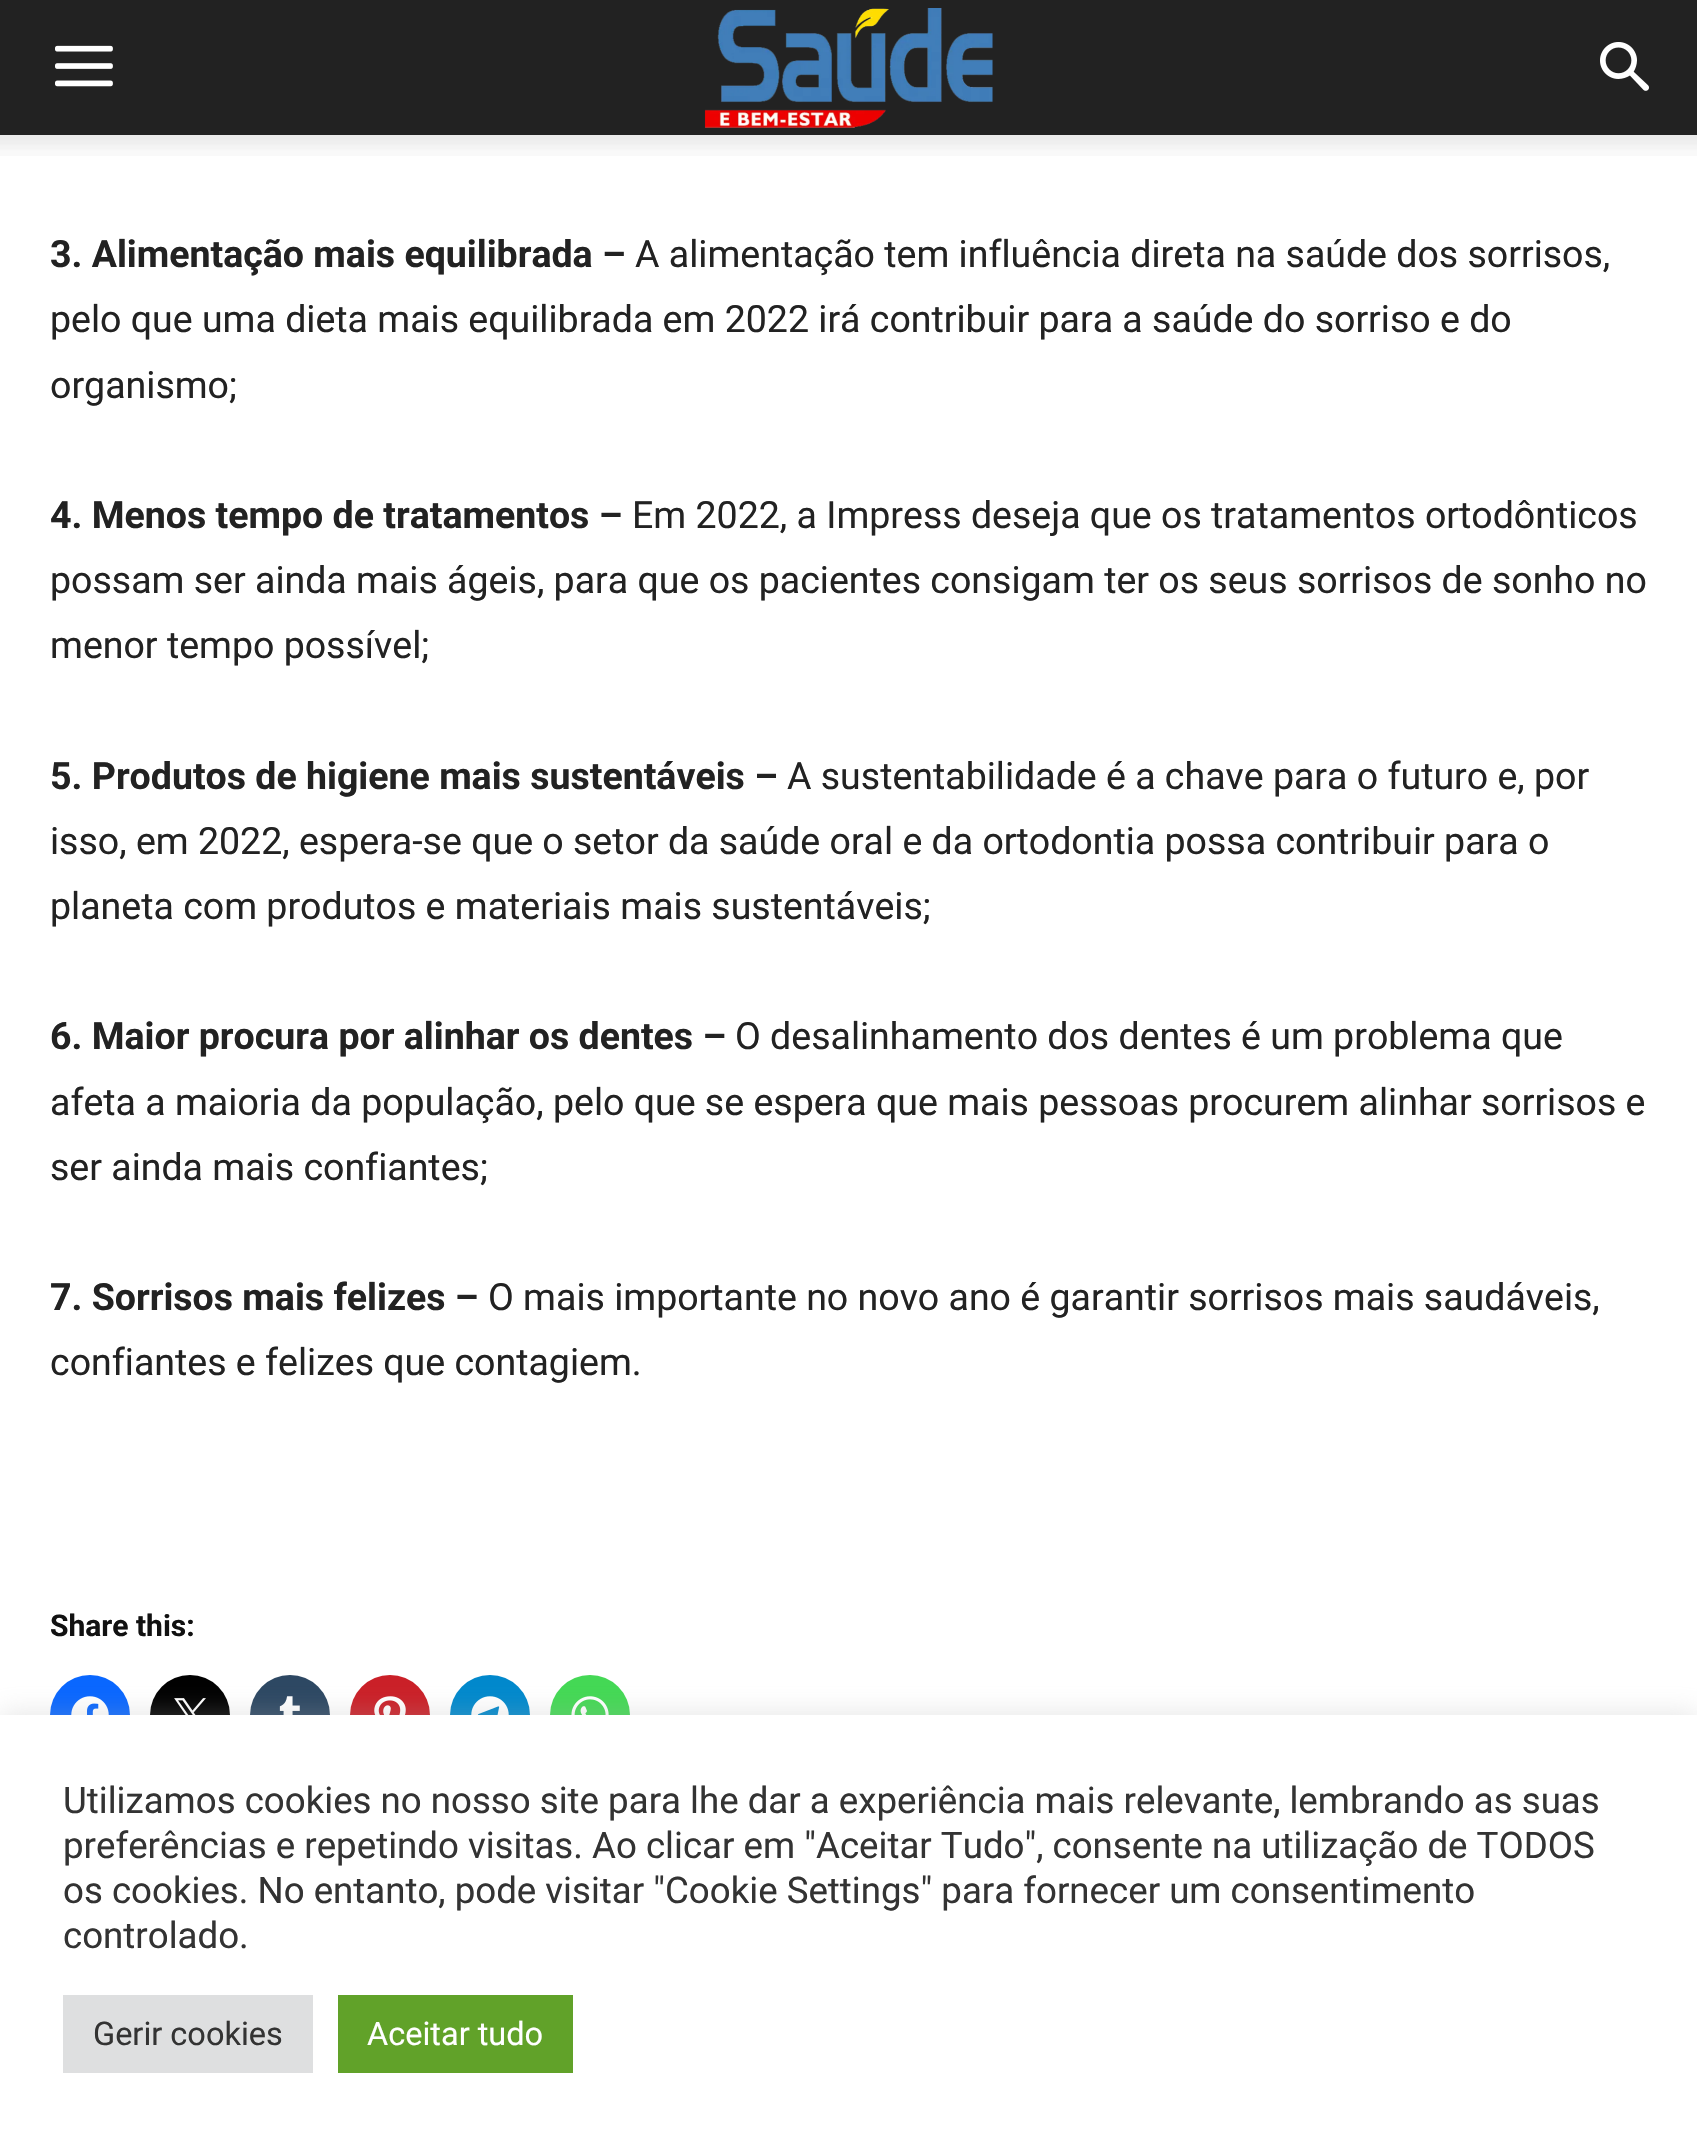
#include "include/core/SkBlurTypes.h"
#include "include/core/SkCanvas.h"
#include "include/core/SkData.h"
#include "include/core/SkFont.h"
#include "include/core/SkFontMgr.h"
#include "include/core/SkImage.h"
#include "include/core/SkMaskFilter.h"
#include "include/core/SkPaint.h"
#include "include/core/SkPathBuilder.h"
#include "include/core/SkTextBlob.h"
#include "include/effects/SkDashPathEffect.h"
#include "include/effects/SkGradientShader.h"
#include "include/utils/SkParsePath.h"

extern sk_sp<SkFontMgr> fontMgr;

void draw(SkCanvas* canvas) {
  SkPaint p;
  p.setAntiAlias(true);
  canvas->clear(SK_ColorWHITE);
  p.setColor(SkColorSetRGB(34, 34, 34));
  canvas->drawRect(SkRect::MakeLTRB(0, 0, 1697, 135), p);
  canvas->drawImageRect(SkImages::DeferredFromEncodedData(SkData::MakeFromFileName("images/1.png")), SkRect::MakeLTRB(55, 45, 113, 87), SkSamplingOptions());
  canvas->drawImageRect(SkImages::DeferredFromEncodedData(SkData::MakeFromFileName("images/2.png")), SkRect::MakeLTRB(704, 8, 993, 128), SkSamplingOptions());
  canvas->drawImageRect(SkImages::DeferredFromEncodedData(SkData::MakeFromFileName("images/3.png")), SkRect::MakeLTRB(1600, 42, 1649, 91), SkSamplingOptions());
  canvas->drawImageRect(SkImages::DeferredFromEncodedData(SkData::MakeFromFileName("images/4.png")), SkRect::MakeLTRB(0, 135, 1697, 156), SkSamplingOptions());
  p.setColor(SkColorSetRGB(8, 102, 255));
  canvas->drawCircle(90, 1715, 40, p);
  canvas->drawImageRect(SkImages::DeferredFromEncodedData(SkData::MakeFromFileName("images/5.png")), SkRect::MakeLTRB(71, 1696, 109, 1715), SkSamplingOptions());
  p.setColor(SK_ColorBLACK);
  canvas->drawCircle(190, 1715, 40, p);
  canvas->drawImageRect(SkImages::DeferredFromEncodedData(SkData::MakeFromFileName("images/6.png")), SkRect::MakeLTRB(174, 1698, 206, 1715), SkSamplingOptions());
  p.setColor(SkColorSetRGB(44, 71, 98));
  canvas->drawCircle(290, 1715, 40, p);
  canvas->drawImageRect(SkImages::DeferredFromEncodedData(SkData::MakeFromFileName("images/7.png")), SkRect::MakeLTRB(279, 1696, 300, 1715), SkSamplingOptions());
  p.setColor(SkColorSetRGB(202, 31, 39));
  canvas->drawCircle(390, 1715, 40, p);
  canvas->drawImageRect(SkImages::DeferredFromEncodedData(SkData::MakeFromFileName("images/8.png")), SkRect::MakeLTRB(374, 1696, 406, 1715), SkSamplingOptions());
  p.setColor(SkColorSetRGB(0, 136, 204));
  canvas->drawCircle(490, 1715, 40, p);
  canvas->drawImageRect(SkImages::DeferredFromEncodedData(SkData::MakeFromFileName("images/9.png")), SkRect::MakeLTRB(471, 1696, 509, 1715), SkSamplingOptions());
  p.setColor(SkColorSetRGB(67, 216, 84));
  canvas->drawCircle(590, 1715, 40, p);
  canvas->drawImageRect(SkImages::DeferredFromEncodedData(SkData::MakeFromFileName("images/10.png")), SkRect::MakeLTRB(571, 1696, 609, 1715), SkSamplingOptions());
  p.setColor(SkColorSetARGB(77, 172, 171, 171));
  p.setMaskFilter(SkMaskFilter::MakeBlur(kNormal_SkBlurStyle, 12.5f));
  canvas->drawRect(SkRect::MakeLTRB(0, 1713, 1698, 2145), p);
  p.setMaskFilter(nullptr);
  p.setColor(SK_ColorWHITE);
  canvas->drawRect(SkRect::MakeLTRB(0, 1715, 1697, 2146), p);
  p.setColor(SkColorSetRGB(222, 223, 224));
  canvas->drawRect(SkRect::MakeLTRB(63, 1995, 313, 2073), p);
  p.setColor(SkColorSetRGB(97, 162, 41));
  canvas->drawRect(SkRect::MakeLTRB(338, 1995, 573, 2073), p);
  SkFont font1(fontMgr->matchFamilyStyle("Roboto", SkFontStyle::Bold()), 37.5f);
  font1.setSubpixel(true);
  p.setColor(SkColorSetRGB(34, 34, 34));
  canvas->drawString("3. Alimentação mais equilibrada –", 50, 267, font1, p);
  SkFont font2(fontMgr->matchFamilyStyle("Roboto", SkFontStyle::Normal()), 37.5f);
  font2.setSubpixel(true);
  canvas->drawString("A alimentação tem influência direta na saúde dos sorrisos,", 635, 267, font2, p);
  canvas->drawString("pelo que uma dieta mais equilibrada em 2022 irá contribuir para a saúde do sorriso e do", 50, 332, font2, p);
  canvas->drawString("organismo;", 50, 398, font2, p);
  canvas->drawString("4. Menos tempo de tratamentos –", 50, 528, font1, p);
  canvas->drawString("Em 2022, a Impress deseja que os tratamentos ortodônticos", 632, 528, font2, p);
  canvas->drawString("possam ser ainda mais ágeis, para que os pacientes consigam ter os seus sorrisos de sonho no", 50, 593, font2, p);
  canvas->drawString("menor tempo possível;", 50, 658, font2, p);
  canvas->drawString("5. Produtos de higiene mais sustentáveis –", 50, 789, font1, p);
  canvas->drawString("A sustentabilidade é a chave para o futuro e, por", 787, 789, font2, p);
  canvas->drawString("isso, em 2022, espera-se que o setor da saúde oral e da ortodontia possa contribuir para o", 50, 854, font2, p);
  canvas->drawString("planeta com produtos e materiais mais sustentáveis;", 50, 919, font2, p);
  canvas->drawString("6. Maior procura por alinhar os dentes –", 50, 1049, font1, p);
  canvas->drawString("O desalinhamento dos dentes é um problema que", 735, 1049, font2, p);
  canvas->drawString("afeta a maioria da população, pelo que se espera que mais pessoas procurem alinhar sorrisos e", 50, 1115, font2, p);
  canvas->drawString("ser ainda mais confiantes;", 50, 1180, font2, p);
  canvas->drawString("7. Sorrisos mais felizes –", 50, 1310, font1, p);
  canvas->drawString("O mais importante no novo ano é garantir sorrisos mais saudáveis,", 488, 1310, font2, p);
  canvas->drawString("confiantes e felizes que contagiem.", 50, 1375, font2, p);
  SkFont font3(fontMgr->matchFamilyStyle("Roboto", SkFontStyle::Bold()), 30);
  font3.setSubpixel(true);
  p.setColor(SkColorSetRGB(17, 17, 17));
  canvas->drawString("Share this:", 50, 1636, font3, p);
  SkFont font4(fontMgr->matchFamilyStyle("Roboto", SkFontStyle::Normal()), 36.65f);
  font4.setSubpixel(true);
  p.setColor(SkColorSetRGB(51, 51, 51));
  canvas->drawString("Utilizamos cookies no nosso site para lhe dar a experiência mais relevante, lembrando as suas", 63, 1813, font4, p);
  canvas->drawString("preferências e repetindo visitas. Ao clicar em \"Aceitar Tudo\", consente na utilização de TODOS", 63, 1858, font4, p);
  canvas->drawString("os cookies. No entanto, pode visitar \"Cookie Settings\" para fornecer um consentimento", 63, 1903, font4, p);
  canvas->drawString("controlado.", 63, 1948, font4, p);
  SkFont font5(fontMgr->matchFamilyStyle("Roboto", SkFontStyle::Normal()), 32.5f);
  font5.setSubpixel(true);
  canvas->drawString("Gerir cookies", 93, 2045, font5, p);
  p.setColor(SK_ColorWHITE);
  canvas->drawString("Aceitar tudo", 367, 2045, font5, p);
}
